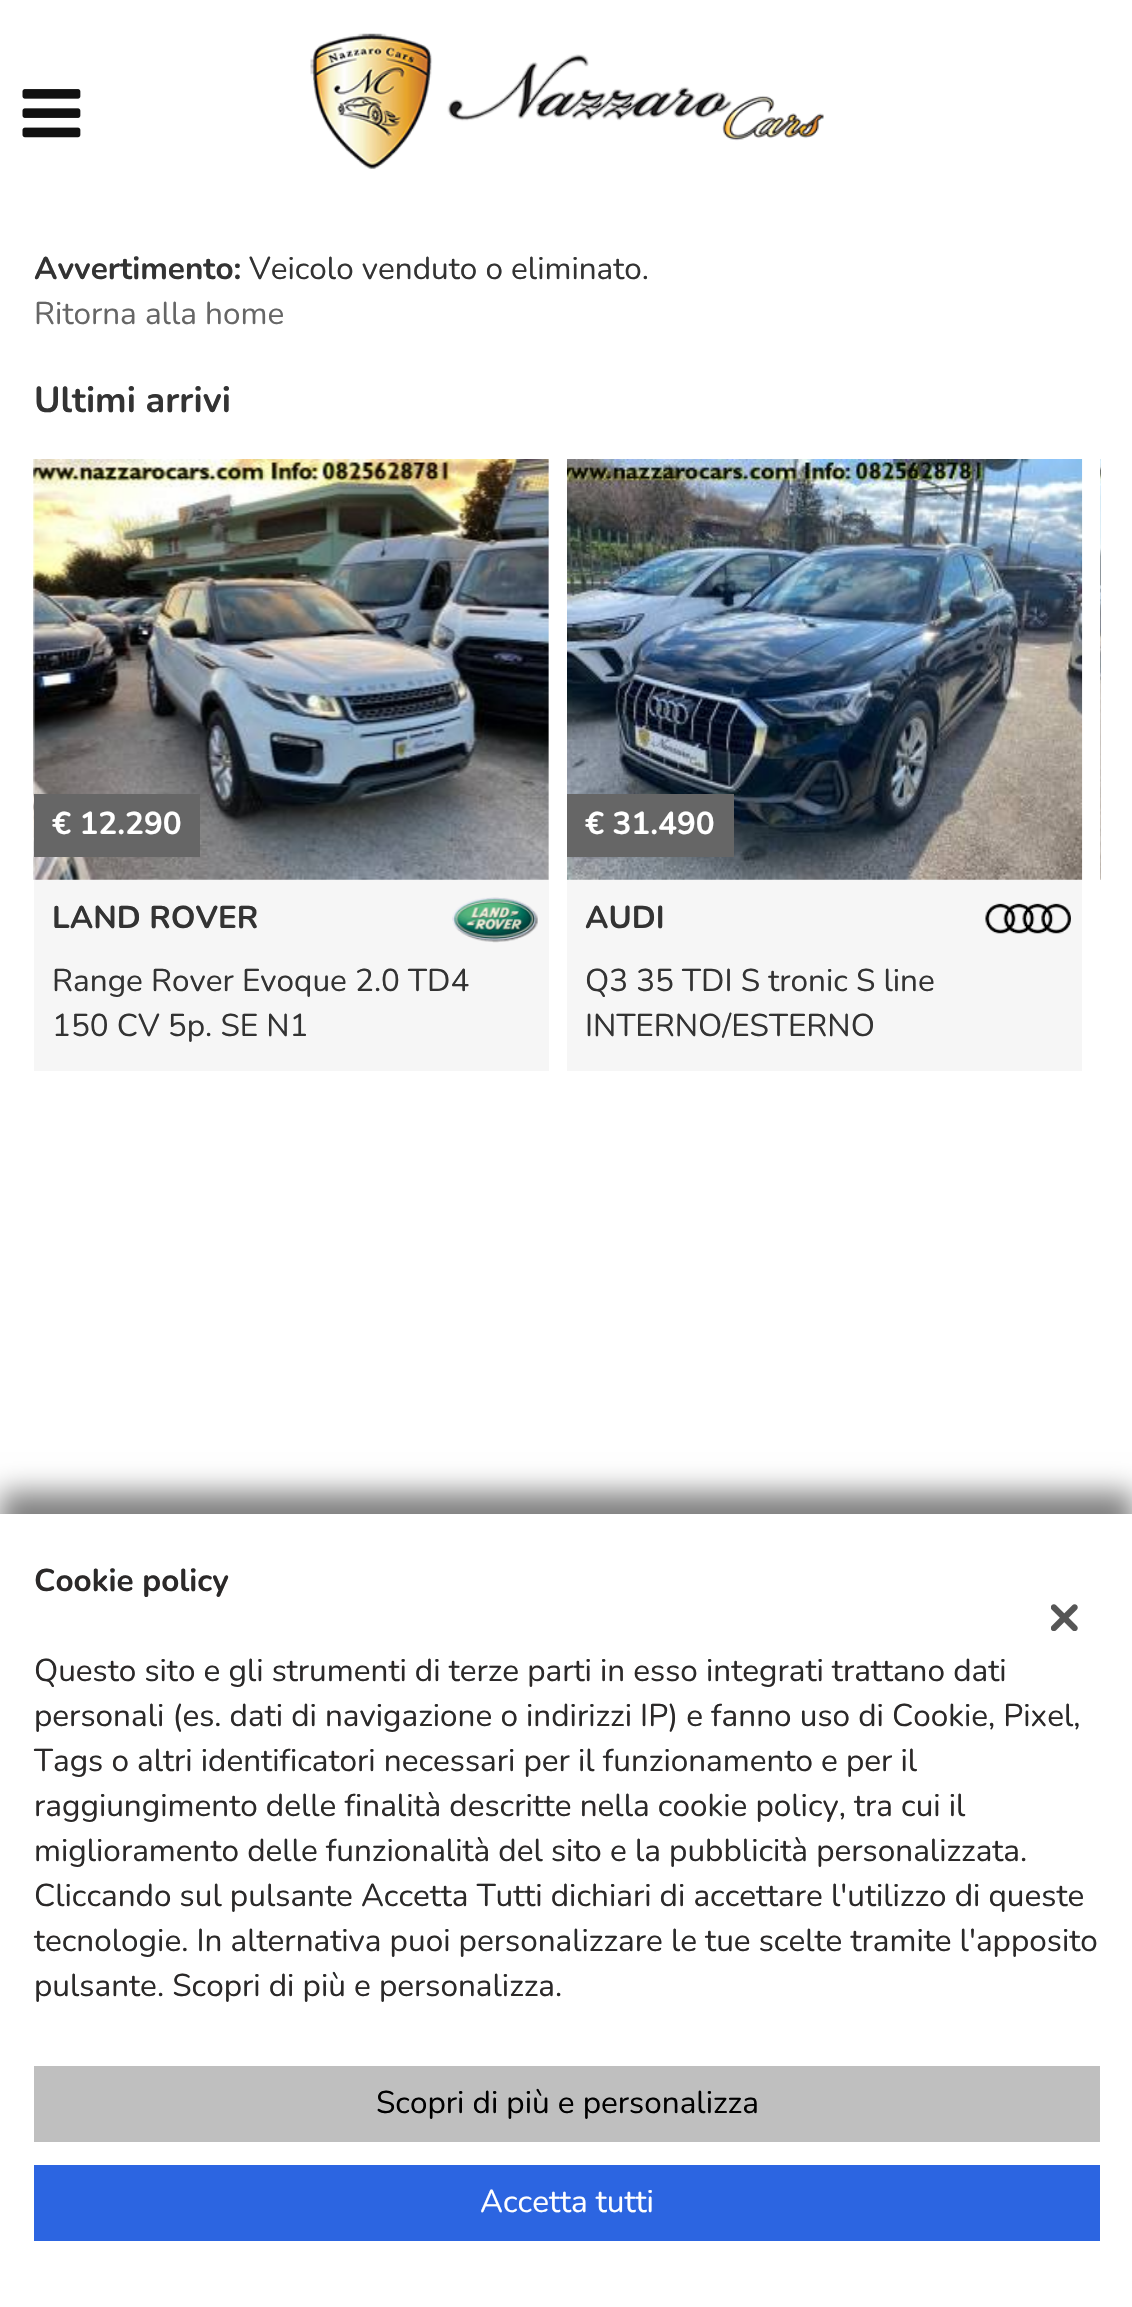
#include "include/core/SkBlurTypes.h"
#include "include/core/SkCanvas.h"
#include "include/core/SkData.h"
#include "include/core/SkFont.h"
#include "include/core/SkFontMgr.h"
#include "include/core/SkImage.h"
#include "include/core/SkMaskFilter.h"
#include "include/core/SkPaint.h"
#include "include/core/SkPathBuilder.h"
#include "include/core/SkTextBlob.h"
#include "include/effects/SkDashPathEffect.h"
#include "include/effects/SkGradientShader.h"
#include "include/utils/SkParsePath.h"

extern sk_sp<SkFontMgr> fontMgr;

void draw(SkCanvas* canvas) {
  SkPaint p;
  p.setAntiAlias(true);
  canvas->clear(SK_ColorWHITE);
  canvas->drawImageRect(SkImages::DeferredFromEncodedData(SkData::MakeFromFileName("images/1.png")), SkRect::MakeLTRB(22, 89, 81, 138), SkSamplingOptions());
  canvas->drawImageRect(SkImages::DeferredFromEncodedData(SkData::MakeFromFileName("images/2.png")), SkRect::MakeLTRB(310, 33, 824, 169), SkSamplingOptions());
  canvas->drawImageRect(SkImages::DeferredFromEncodedData(SkData::MakeFromFileName("images/3.png")), SkRect::MakeLTRB(1100, 459, 1101, 880), SkSamplingOptions());
  p.setColor(SkColorSetRGB(246, 246, 246));
  canvas->drawRect(SkRect::MakeLTRB(34, 459, 549, 1071), p);
  canvas->drawImageRect(SkImages::DeferredFromEncodedData(SkData::MakeFromFileName("images/4.png")), SkRect::MakeLTRB(33, 459, 549, 880), SkSamplingOptions());
  p.setColor(SkColorSetRGB(102, 102, 102));
  canvas->drawRect(SkRect::MakeLTRB(34, 794, 200, 857), p);
  canvas->drawImageRect(SkImages::DeferredFromEncodedData(SkData::MakeFromFileName("images/5.png")), SkRect::MakeLTRB(452, 897, 538, 943), SkSamplingOptions());
  p.setColor(SkColorSetRGB(246, 246, 246));
  canvas->drawRect(SkRect::MakeLTRB(567, 879, 1082, 1071), p);
  canvas->drawImageRect(SkImages::DeferredFromEncodedData(SkData::MakeFromFileName("images/6.png")), SkRect::MakeLTRB(567, 459, 1083, 880), SkSamplingOptions());
  p.setColor(SkColorSetRGB(102, 102, 102));
  canvas->drawRect(SkRect::MakeLTRB(567, 794, 734, 857), p);
  canvas->drawImageRect(SkImages::DeferredFromEncodedData(SkData::MakeFromFileName("images/7.png")), SkRect::MakeLTRB(985, 903, 1071, 934), SkSamplingOptions());
  p.setColor(SkColorSetARGB(128, 0, 0, 0));
  p.setMaskFilter(SkMaskFilter::MakeBlur(kNormal_SkBlurStyle, 13.5f));
  canvas->drawRect(SkRect::MakeLTRB(0, 1492, 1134, 2286), p);
  p.setMaskFilter(nullptr);
  p.setColor(SK_ColorWHITE);
  canvas->drawRect(SkRect::MakeLTRB(0, 1514, 1132, 2307), p);
  p.setColor(SkColorSetRGB(191, 191, 191));
  canvas->drawRect(SkRect::MakeLTRB(34, 2066, 1100, 2142), p);
  p.setColor(SkColorSetRGB(44, 101, 225));
  canvas->drawRect(SkRect::MakeLTRB(34, 2165, 1100, 2241), p);
  canvas->drawImageRect(SkImages::DeferredFromEncodedData(SkData::MakeFromFileName("images/8.png")), SkRect::MakeLTRB(1051, 1604, 1078, 1631), SkSamplingOptions());
  SkFont font1(fontMgr->matchFamilyStyle("Nunito", SkFontStyle::Bold()), 31.5f);
  font1.setSubpixel(true);
  p.setColor(SkColorSetRGB(51, 51, 51));
  canvas->drawString("Avvertimento:", 34, 279, font1, p);
  SkFont font2(fontMgr->matchFamilyStyle("Nunito", SkFontStyle::Normal()), 31.5f);
  font2.setSubpixel(true);
  canvas->drawString("Veicolo venduto o eliminato.", 249, 279, font2, p);
  p.setColor(SkColorSetRGB(102, 102, 102));
  canvas->drawString("Ritorna alla home", 34, 324, font2, p);
  SkFont font3(fontMgr->matchFamilyStyle("Nunito", SkFontStyle::Bold()), 36);
  font3.setSubpixel(true);
  p.setColor(SkColorSetRGB(51, 51, 51));
  canvas->drawString("Ultimi arrivi", 34, 412, font3, p);
  p.setColor(SK_ColorWHITE);
  canvas->drawString("€ 12.290", 52, 834, font1, p);
  p.setColor(SkColorSetRGB(51, 51, 51));
  canvas->drawString("LAND ROVER", 52, 928, font1, p);
  canvas->drawString("Range Rover Evoque 2.0 TD4", 52, 991, font2, p);
  canvas->drawString("150 CV 5p. SE N1", 52, 1036, font2, p);
  p.setColor(SK_ColorWHITE);
  canvas->drawString("€ 31.490", 585, 834, font1, p);
  p.setColor(SkColorSetRGB(51, 51, 51));
  canvas->drawString("AUDI", 585, 928, font1, p);
  canvas->drawString("Q3 35 TDI S tronic S line", 585, 991, font2, p);
  canvas->drawString("INTERNO/ESTERNO", 585, 1036, font2, p);
  p.setColor(SkColorSetRGB(43, 41, 41));
  canvas->drawString("Cookie policy", 34, 1591, font1, p);
  canvas->drawString("Questo sito e gli strumenti di terze parti in esso integrati trattano dati", 34, 1681, font2, p);
  canvas->drawString("personali (es. dati di navigazione o indirizzi IP) e fanno uso di Cookie, Pixel,", 34, 1726, font2, p);
  canvas->drawString("Tags o altri identificatori necessari per il funzionamento e per il", 34, 1771, font2, p);
  canvas->drawString("raggiungimento delle finalità descritte nella cookie policy, tra cui il", 34, 1816, font2, p);
  canvas->drawString("miglioramento delle funzionalità del sito e la pubblicità personalizzata.", 34, 1861, font2, p);
  canvas->drawString("Cliccando sul pulsante Accetta Tutti dichiari di accettare l'utilizzo di queste", 34, 1906, font2, p);
  canvas->drawString("tecnologie. In alternativa puoi personalizzare le tue scelte tramite l'apposito", 34, 1951, font2, p);
  canvas->drawString("pulsante. Scopri di più e personalizza.", 34, 1996, font2, p);
  p.setColor(SK_ColorBLACK);
  canvas->drawString("Scopri di più e personalizza", 376, 2113, font2, p);
  p.setColor(SK_ColorWHITE);
  canvas->drawString("Accetta tutti", 480, 2212, font2, p);
}
